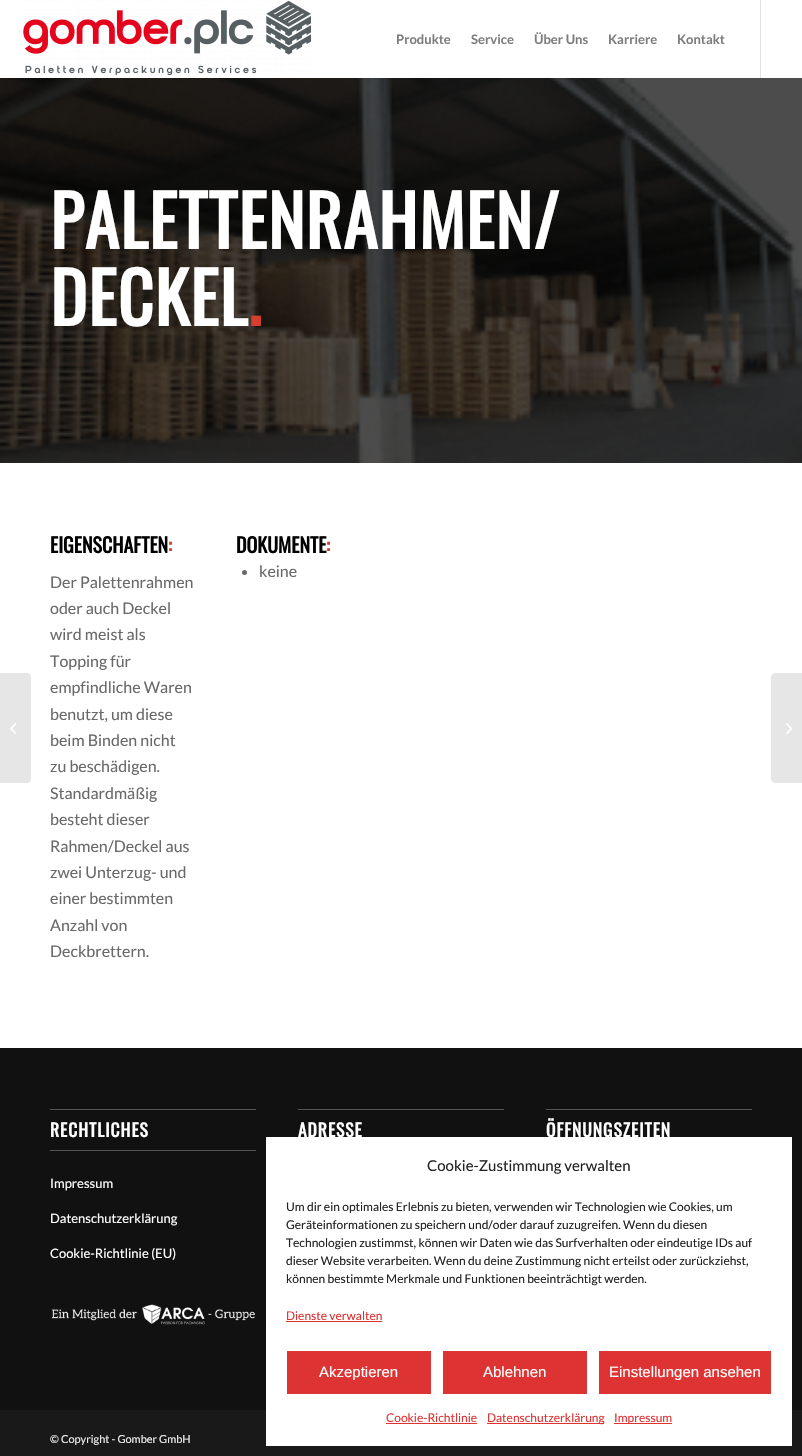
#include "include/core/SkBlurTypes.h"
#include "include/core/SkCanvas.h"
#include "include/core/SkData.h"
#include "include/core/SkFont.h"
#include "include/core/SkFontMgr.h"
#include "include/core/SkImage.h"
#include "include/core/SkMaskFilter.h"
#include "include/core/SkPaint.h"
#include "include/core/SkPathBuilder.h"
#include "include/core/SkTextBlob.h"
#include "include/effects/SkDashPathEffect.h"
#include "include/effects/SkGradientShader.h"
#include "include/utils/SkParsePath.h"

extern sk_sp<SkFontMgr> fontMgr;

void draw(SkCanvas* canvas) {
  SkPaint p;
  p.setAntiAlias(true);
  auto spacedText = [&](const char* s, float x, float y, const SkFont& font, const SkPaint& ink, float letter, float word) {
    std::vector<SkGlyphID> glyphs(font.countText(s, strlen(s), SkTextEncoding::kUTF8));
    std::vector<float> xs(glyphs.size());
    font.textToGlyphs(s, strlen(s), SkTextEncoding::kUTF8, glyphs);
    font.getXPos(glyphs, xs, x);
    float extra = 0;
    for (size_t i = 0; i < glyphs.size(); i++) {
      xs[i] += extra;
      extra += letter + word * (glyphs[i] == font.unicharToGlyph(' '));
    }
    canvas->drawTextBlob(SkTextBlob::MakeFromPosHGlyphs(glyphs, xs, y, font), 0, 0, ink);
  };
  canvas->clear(SK_ColorWHITE);
  canvas->drawImageRect(SkImages::DeferredFromEncodedData(SkData::MakeFromFileName("images/1.png")), SkRect::MakeLTRB(23, 0, 312, 76), SkSamplingOptions());
  p.setColor(SkColorSetRGB(225, 225, 225));
  canvas->drawRect(SkRect::MakeLTRB(760, 0, 761, 78), p);
  p.setColor(SkColorSetRGB(230, 230, 230));
  canvas->drawPath(SkPathBuilder().moveTo(0, 673).lineTo(27, 673).cubicTo(29, 673, 31, 675, 31, 677).lineTo(31, 779).cubicTo(31, 781, 29, 783, 27, 783).lineTo(0, 783).close().detach(), p);
  canvas->drawImageRect(SkImages::DeferredFromEncodedData(SkData::MakeFromFileName("images/2.png")), SkRect::MakeLTRB(10, 723, 17, 734), SkSamplingOptions());
  canvas->drawImageRect(SkImages::DeferredFromEncodedData(SkData::MakeFromFileName("images/3.png")), SkRect::MakeLTRB(0, 78, 802, 463), SkSamplingOptions());
  p.setColor(SkColorSetRGB(105, 105, 105));
  canvas->drawCircle(244.5f, 572.5f, 2.5f, p);
  p.setColor(SkColorSetRGB(17, 17, 17));
  canvas->drawRect(SkRect::MakeLTRB(0, 1048, 802, 1410), p);
  p.setColor(SkColorSetRGB(85, 85, 85));
  canvas->drawRect(SkRect::MakeLTRB(50, 1109, 256, 1110), p);
  canvas->drawRect(SkRect::MakeLTRB(50, 1150, 256, 1151), p);
  canvas->drawImageRect(SkImages::DeferredFromEncodedData(SkData::MakeFromFileName("images/4.png")), SkRect::MakeLTRB(51, 1304, 256, 1325), SkSamplingOptions());
  canvas->drawRect(SkRect::MakeLTRB(298, 1109, 504, 1110), p);
  canvas->drawRect(SkRect::MakeLTRB(546, 1109, 752, 1110), p);
  p.setColor(SkColorSetRGB(25, 25, 25));
  canvas->drawRect(SkRect::MakeLTRB(0, 1410, 802, 1456), p);
  p.setColor(SkColorSetRGB(230, 230, 230));
  canvas->drawPath(SkPathBuilder().moveTo(775, 673).lineTo(802, 673).lineTo(802, 783).lineTo(775, 783).cubicTo(773, 783, 771, 781, 771, 779).lineTo(771, 677).cubicTo(771, 675, 773, 673, 775, 673).close().detach(), p);
  canvas->drawImageRect(SkImages::DeferredFromEncodedData(SkData::MakeFromFileName("images/5.png")), SkRect::MakeLTRB(786, 723, 793, 734), SkSamplingOptions());
  p.setColor(SK_ColorWHITE);
  canvas->drawRect(SkRect::MakeLTRB(266, 1137, 792, 1446), p);
  p.setColor(SkColorSetRGB(221, 51, 51));
  canvas->drawRect(SkRect::MakeLTRB(286, 1321, 382, 1322), p);
  canvas->drawRect(SkRect::MakeLTRB(287, 1351, 431, 1394), p);
  canvas->drawRect(SkRect::MakeLTRB(443, 1351, 587, 1394), p);
  canvas->drawRect(SkRect::MakeLTRB(599, 1351, 771, 1394), p);
  canvas->drawRect(SkRect::MakeLTRB(386, 1423, 477, 1424), p);
  canvas->drawRect(SkRect::MakeLTRB(487, 1423, 604, 1424), p);
  canvas->drawRect(SkRect::MakeLTRB(614, 1423, 672, 1424), p);
  SkFont font1(fontMgr->matchFamilyStyle("Lato", SkFontStyle::Bold()), 13);
  font1.setSubpixel(true);
  p.setColor(SkColorSetRGB(125, 125, 125));
  canvas->drawString("Produkte", 396, 44, font1, p);
  canvas->drawString("Service", 471, 44, font1, p);
  canvas->drawString("Über Uns", 534, 44, font1, p);
  canvas->drawString("Karriere", 608, 44, font1, p);
  canvas->drawString("Kontakt", 677, 44, font1, p);
  SkFont font2(fontMgr->matchFamilyStyle("Oswald", SkFontStyle::Bold()), 70);
  font2.setSubpixel(true);
  p.setColor(SK_ColorWHITE);
  spacedText("PALETTENRAHMEN/", 50, 249, font2, p, 1, 0);
  spacedText("DECKEL", 50, 326, font2, p, 1, 0);
  p.setColor(SkColorSetRGB(214, 62, 45));
  spacedText(".", 248, 326, font2, p, 1, 0);
  SkFont font3(fontMgr->matchFamilyStyle("Oswald", SkFontStyle::Bold()), 20);
  font3.setSubpixel(true);
  p.setColor(SK_ColorBLACK);
  canvas->drawString("EIGENSCHAFTEN", 50, 553, font3, p);
  p.setColor(SkColorSetRGB(214, 62, 45));
  canvas->drawString(":", 168, 553, font3, p);
  SkFont font4(fontMgr->matchFamilyStyle("Lato", SkFontStyle::Normal()), 16);
  font4.setSubpixel(true);
  p.setColor(SkColorSetRGB(105, 105, 105));
  canvas->drawString("Der Palettenrahmen", 50, 588, font4, p);
  canvas->drawString("oder auch Deckel", 50, 614, font4, p);
  canvas->drawString("wird meist als", 50, 640, font4, p);
  canvas->drawString("Topping für", 50, 667, font4, p);
  canvas->drawString("empfindliche Waren", 50, 693, font4, p);
  canvas->drawString("benutzt, um diese", 50, 720, font4, p);
  canvas->drawString("beim Binden nicht", 50, 746, font4, p);
  canvas->drawString("zu beschädigen.", 50, 772, font4, p);
  canvas->drawString("Standardmäßig", 50, 799, font4, p);
  canvas->drawString("besteht dieser", 50, 825, font4, p);
  canvas->drawString("Rahmen/Deckel aus", 50, 852, font4, p);
  canvas->drawString("zwei Unterzug- und", 50, 878, font4, p);
  canvas->drawString("einer bestimmten", 50, 904, font4, p);
  canvas->drawString("Anzahl von", 50, 931, font4, p);
  canvas->drawString("Deckbrettern.", 50, 957, font4, p);
  p.setColor(SK_ColorBLACK);
  canvas->drawString("DOKUMENTE", 236, 553, font3, p);
  p.setColor(SkColorSetRGB(214, 62, 45));
  canvas->drawString(":", 326, 553, font3, p);
  p.setColor(SkColorSetRGB(105, 105, 105));
  canvas->drawString("keine", 259, 577, font4, p);
  SkFont font5(fontMgr->matchFamilyStyle("Oswald", SkFontStyle::Bold()), 17.5f);
  font5.setSubpixel(true);
  p.setColor(SK_ColorWHITE);
  spacedText("RECHTLICHES", 50, 1137, font5, p, 1, 0);
  SkFont font6(fontMgr->matchFamilyStyle("Lato", SkFontStyle::Normal()), 13);
  font6.setSubpixel(true);
  canvas->drawString("Impressum", 50, 1188, font6, p);
  canvas->drawString("Datenschutzerklärung", 50, 1223, font6, p);
  canvas->drawString("Cookie-Richtlinie (EU)", 50, 1258, font6, p);
  spacedText("ADRESSE", 298, 1137, font5, p, 1, 0);
  spacedText("ÖFFNUNGSZEITEN", 546, 1137, font5, p, 1, 0);
  SkFont font7(fontMgr->matchFamilyStyle("Lato", SkFontStyle::Normal()), 11);
  font7.setSubpixel(true);
  p.setColor(SkColorSetRGB(238, 238, 238));
  canvas->drawString("© Copyright - Gomber GmbH", 50, 1443, font7, p);
  SkFont font8(fontMgr->matchFamilyStyle("Lato", SkFontStyle::Normal()), 15);
  font8.setSubpixel(true);
  p.setColor(SkColorSetRGB(34, 34, 34));
  canvas->drawString("Cookie-Zustimmung verwalten", 427, 1171, font8, p);
  SkFont font9(fontMgr->matchFamilyStyle("Lato", SkFontStyle::Normal()), 12);
  font9.setSubpixel(true);
  canvas->drawString("Um dir ein optimales Erlebnis zu bieten, verwenden wir Technologien wie Cookies, um", 286, 1211, font9, p);
  canvas->drawString("Geräteinformationen zu speichern und/oder darauf zuzugreifen. Wenn du diesen", 286, 1229, font9, p);
  canvas->drawString("Technologien zustimmst, können wir Daten wie das Surfverhalten oder eindeutige IDs auf", 286, 1247, font9, p);
  canvas->drawString("dieser Website verarbeiten. Wenn du deine Zustimmung nicht erteilst oder zurückziehst,", 286, 1265, font9, p);
  canvas->drawString("können bestimmte Merkmale und Funktionen beeinträchtigt werden.", 286, 1283, font9, p);
  p.setColor(SkColorSetRGB(221, 51, 51));
  canvas->drawString("Dienste verwalten", 286, 1320, font9, p);
  SkFont font10(fontMgr->matchFamilyStyle("Liberation Sans", SkFontStyle::Normal()), 15);
  font10.setSubpixel(true);
  p.setColor(SK_ColorWHITE);
  canvas->drawString("Akzeptieren", 319, 1377, font10, p);
  canvas->drawString("Ablehnen", 483, 1377, font10, p);
  canvas->drawString("Einstellungen ansehen", 609, 1377, font10, p);
  p.setColor(SkColorSetRGB(221, 51, 51));
  canvas->drawString("Cookie-Richtlinie", 386, 1422, font9, p);
  canvas->drawString("Datenschutzerklärung", 487, 1422, font9, p);
  canvas->drawString("Impressum", 614, 1422, font9, p);
}
